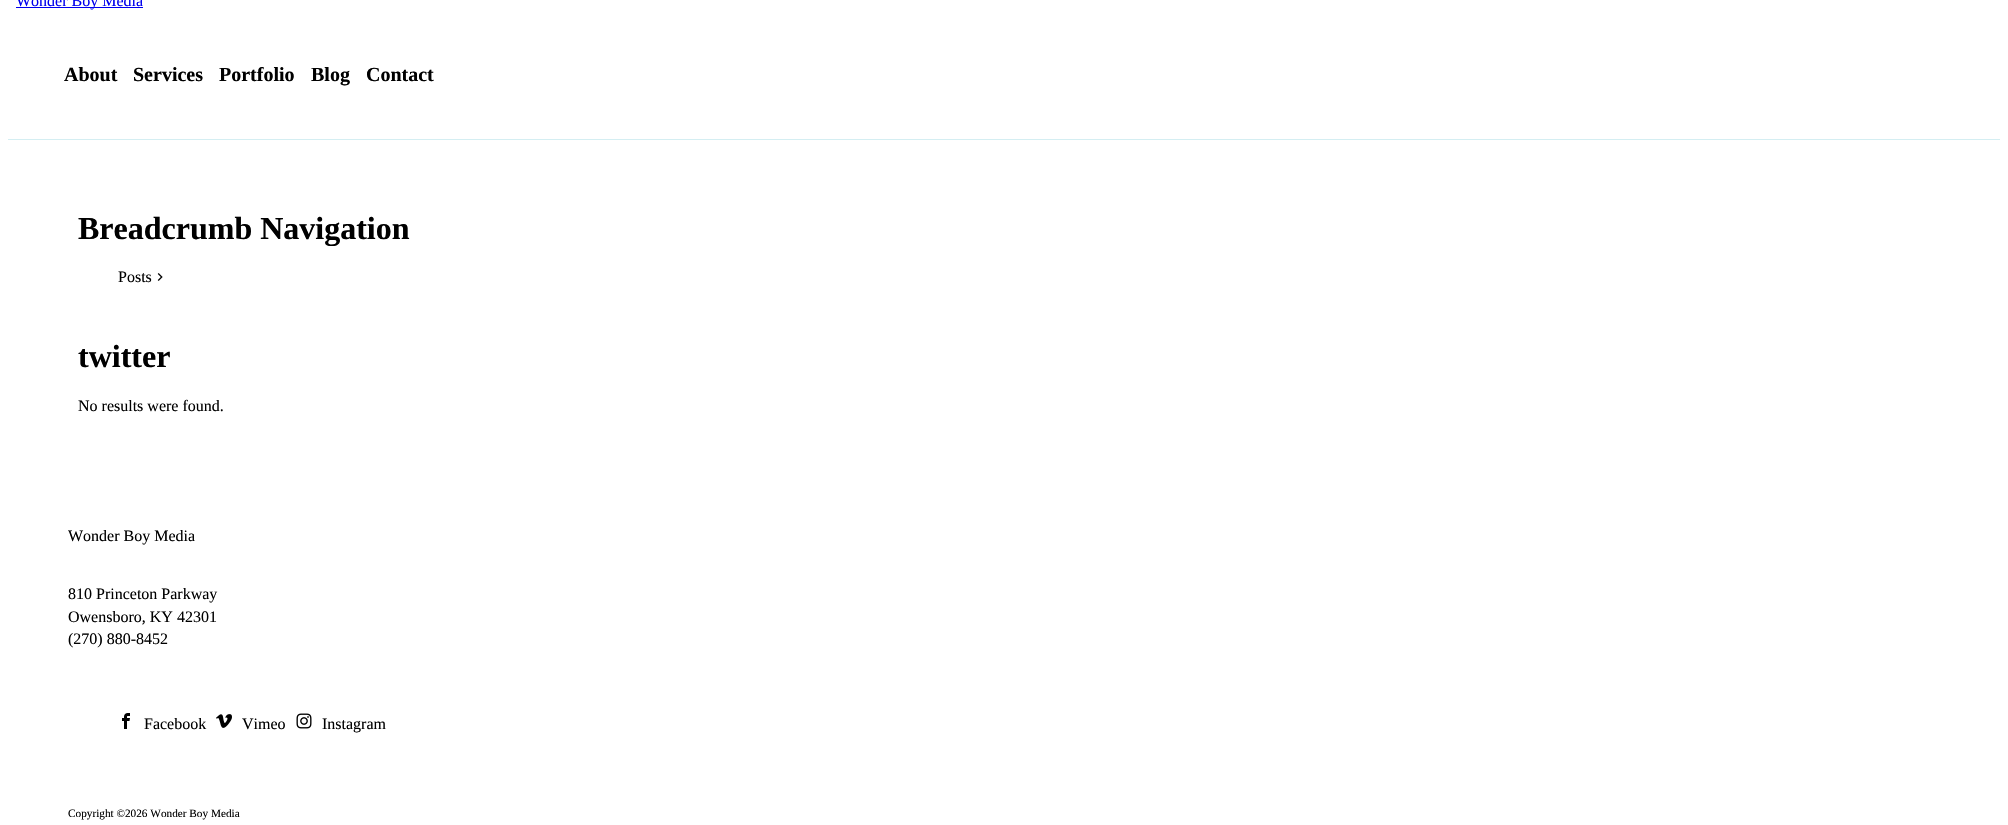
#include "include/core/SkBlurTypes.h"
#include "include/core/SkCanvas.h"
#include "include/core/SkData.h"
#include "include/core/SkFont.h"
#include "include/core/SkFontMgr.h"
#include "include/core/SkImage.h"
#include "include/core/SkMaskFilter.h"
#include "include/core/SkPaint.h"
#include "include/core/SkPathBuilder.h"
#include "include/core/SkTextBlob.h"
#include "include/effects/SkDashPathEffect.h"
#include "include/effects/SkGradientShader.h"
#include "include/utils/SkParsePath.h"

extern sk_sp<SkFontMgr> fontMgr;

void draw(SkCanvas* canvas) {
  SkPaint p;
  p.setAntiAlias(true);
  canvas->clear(SK_ColorWHITE);
  p.setColor(SkColorSetRGB(212, 238, 242));
  canvas->drawRect(SkRect::MakeLTRB(8, 139, 2000, 140), p);
  p.setColor(SkColorSetRGB(0, 0, 238));
  canvas->drawRect(SkRect::MakeLTRB(16, 7, 143, 8), p);
  canvas->drawImageRect(SkImages::DeferredFromEncodedData(SkData::MakeFromFileName("images/1.png")), SkRect::MakeLTRB(157, 273, 163, 281), SkSamplingOptions());
  canvas->drawImageRect(SkImages::DeferredFromEncodedData(SkData::MakeFromFileName("images/2.png")), SkRect::MakeLTRB(122, 713, 130, 729), SkSamplingOptions());
  canvas->drawImageRect(SkImages::DeferredFromEncodedData(SkData::MakeFromFileName("images/3.png")), SkRect::MakeLTRB(216, 714, 232, 728), SkSamplingOptions());
  canvas->drawImageRect(SkImages::DeferredFromEncodedData(SkData::MakeFromFileName("images/4.png")), SkRect::MakeLTRB(296, 713, 312, 729), SkSamplingOptions());
  SkFont font1(fontMgr->matchFamilyStyle("Liberation Serif", SkFontStyle::Normal()), 16);
  font1.setSubpixel(true);
  canvas->drawString("Wonder Boy Media", 16, 6, font1, p);
  SkFont font2(fontMgr->matchFamilyStyle("Liberation Serif", SkFontStyle::Bold()), 20);
  font2.setSubpixel(true);
  p.setColor(SK_ColorBLACK);
  canvas->drawString("About", 64, 81, font2, p);
  canvas->drawString("Services", 133, 81, font2, p);
  canvas->drawString("Portfolio", 219, 81, font2, p);
  canvas->drawString("Blog", 311, 81, font2, p);
  canvas->drawString("Contact", 366, 81, font2, p);
  SkFont font3(fontMgr->matchFamilyStyle("Liberation Serif", SkFontStyle::Bold()), 32);
  font3.setSubpixel(true);
  canvas->drawString("Breadcrumb Navigation", 78, 239, font3, p);
  canvas->drawString("Posts", 118, 282, font1, p);
  canvas->drawString("twitter", 78, 367, font3, p);
  canvas->drawString("No results were found.", 78, 411, font1, p);
  canvas->drawString("Wonder Boy Media", 68, 541, font1, p);
  canvas->drawString("810 Princeton Parkway", 68, 599, font1, p);
  canvas->drawString("Owensboro, KY 42301", 68, 622, font1, p);
  canvas->drawString("(270) 880-8452", 68, 644, font1, p);
  canvas->drawString("Facebook", 144, 729, font1, p);
  canvas->drawString("Vimeo", 242, 729, font1, p);
  canvas->drawString("Instagram", 322, 729, font1, p);
  SkFont font4(fontMgr->matchFamilyStyle("Liberation Serif", SkFontStyle::Normal()), 11.25f);
  font4.setSubpixel(true);
  canvas->drawString("Copyright ©2026 Wonder Boy Media", 68, 817, font4, p);
}
